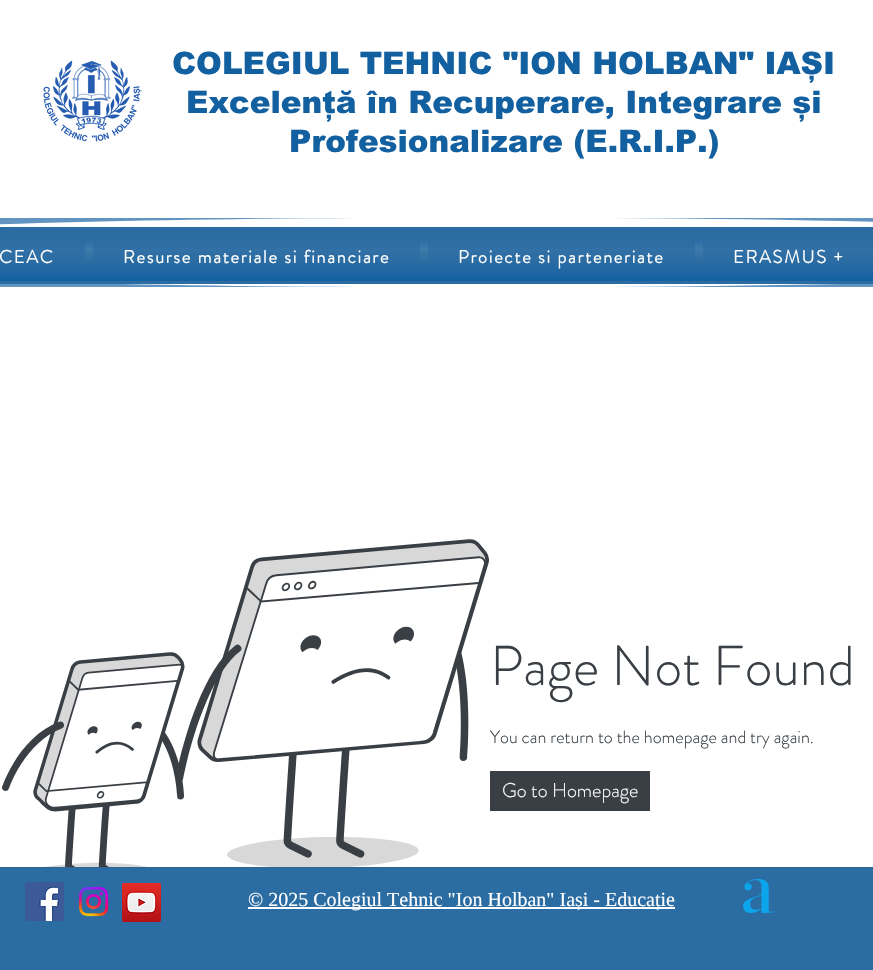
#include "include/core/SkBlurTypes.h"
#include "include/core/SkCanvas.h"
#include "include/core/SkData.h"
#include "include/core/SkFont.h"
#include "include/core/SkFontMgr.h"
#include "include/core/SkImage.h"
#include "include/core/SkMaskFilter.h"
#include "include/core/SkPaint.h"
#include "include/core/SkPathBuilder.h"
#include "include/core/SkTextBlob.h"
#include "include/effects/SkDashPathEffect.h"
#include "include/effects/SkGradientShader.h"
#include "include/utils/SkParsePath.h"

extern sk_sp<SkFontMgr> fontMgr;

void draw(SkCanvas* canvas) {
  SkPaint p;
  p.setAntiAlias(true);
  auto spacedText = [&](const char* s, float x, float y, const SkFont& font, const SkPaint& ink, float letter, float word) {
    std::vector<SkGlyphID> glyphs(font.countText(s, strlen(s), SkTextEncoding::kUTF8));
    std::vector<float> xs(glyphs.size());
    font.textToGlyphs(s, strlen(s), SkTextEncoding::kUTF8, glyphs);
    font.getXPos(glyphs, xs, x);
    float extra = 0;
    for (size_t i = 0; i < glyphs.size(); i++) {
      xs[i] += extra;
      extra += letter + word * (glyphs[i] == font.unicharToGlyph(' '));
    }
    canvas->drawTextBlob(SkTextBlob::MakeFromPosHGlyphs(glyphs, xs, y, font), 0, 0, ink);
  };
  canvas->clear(SK_ColorWHITE);
  canvas->drawImageRect(SkImages::DeferredFromEncodedData(SkData::MakeFromFileName("images/1.png")), SkRect::MakeLTRB(43, 60, 142, 142), SkSamplingOptions());
  p.setColor(SkColorSetRGB(97, 148, 192));
  canvas->drawPath(SkPathBuilder().moveTo(356, 218).lineTo(-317, 218).lineTo(-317, 247).cubicTo(-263, 232, 10, 220, 356, 218).close().detach(), p);
  canvas->drawPath(SkPathBuilder().moveTo(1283, 247).lineTo(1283, 218).lineTo(610, 218).cubicTo(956, 220, 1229, 232, 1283, 247).close().detach(), p);
  canvas->drawPath(SkPathBuilder().moveTo(610, 287).lineTo(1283, 287).lineTo(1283, 258).cubicTo(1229, 273, 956, 285, 610, 287).close().detach(), p);
  canvas->drawPath(SkPathBuilder().moveTo(-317, 258).lineTo(-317, 287).lineTo(356, 287).cubicTo(10, 285, -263, 273, -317, 258).close().detach(), p);
  p.setColor(SkColorSetARGB(179, 43, 108, 163));
  canvas->drawRect(SkRect::MakeLTRB(0, 240, 873, 261), p);
  {
    const SkColor colors[] = {SkColorSetRGB(43, 108, 163), SkColorSetARGB(171, 43, 108, 163), SkColorSetRGB(43, 108, 163), SkColorSetRGB(31, 102, 162), SkColorSetRGB(19, 96, 161)};
    const float stops[] = {0.17f, 0.35f, 0.6f, 0.82f, 1};
    const SkPoint ends[] = {{483, 232}, {483, 281}};
    p.setShader(SkGradientShader::MakeLinear(ends, colors, stops, 5, SkTileMode::kClamp));
    p.setAlpha(255);
  }
  canvas->drawRect(SkRect::MakeLTRB(0, 232, 873, 281), p);
  p.setStyle(SkPaint::kStroke_Style);
  p.setStrokeWidth(3);
  p.setShader(nullptr);
  p.setColor(SkColorSetRGB(43, 108, 163));
  canvas->drawPath(SkPathBuilder().moveTo(-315.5f, 228.5f).lineTo(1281.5f, 228.5f).lineTo(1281.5f, 282.5f).lineTo(-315.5f, 282.5f).close().detach(), p);
  p.setStyle(SkPaint::kFill_Style);
  canvas->drawRect(SkRect::MakeLTRB(0, 230, 873, 232), p);
  {
    const SkColor colors[] = {SkColorSetRGB(43, 108, 163), SkColorSetARGB(171, 43, 108, 163), SkColorSetRGB(43, 108, 163), SkColorSetRGB(31, 102, 162), SkColorSetRGB(19, 96, 161)};
    const float stops[] = {0.17f, 0.35f, 0.6f, 0.82f, 1};
    const SkPoint ends[] = {{27, 234}, {27, 280}};
    p.setShader(SkGradientShader::MakeLinear(ends, colors, stops, 5, SkTileMode::kClamp));
    p.setAlpha(255);
  }
  canvas->drawRect(SkRect::MakeLTRB(0, 242, 85, 260), p);
  {
    const SkColor colors[] = {SkColorSetRGB(43, 108, 163), SkColorSetARGB(171, 43, 108, 163), SkColorSetRGB(43, 108, 163), SkColorSetRGB(31, 102, 162), SkColorSetRGB(19, 96, 161)};
    const float stops[] = {0.17f, 0.35f, 0.6f, 0.82f, 1};
    const SkPoint ends[] = {{257, 234}, {257, 280}};
    p.setShader(SkGradientShader::MakeLinear(ends, colors, stops, 5, SkTileMode::kClamp));
    p.setAlpha(255);
  }
  canvas->drawRect(SkRect::MakeLTRB(93, 242, 420, 260), p);
  {
    const SkColor colors[] = {SkColorSetRGB(43, 108, 163), SkColorSetARGB(171, 43, 108, 163), SkColorSetRGB(43, 108, 163), SkColorSetRGB(31, 102, 162), SkColorSetRGB(19, 96, 161)};
    const float stops[] = {0.17f, 0.35f, 0.6f, 0.82f, 1};
    const SkPoint ends[] = {{562, 234}, {562, 280}};
    p.setShader(SkGradientShader::MakeLinear(ends, colors, stops, 5, SkTileMode::kClamp));
    p.setAlpha(255);
  }
  canvas->drawRect(SkRect::MakeLTRB(428, 242, 695, 260), p);
  {
    const SkColor colors[] = {SkColorSetRGB(43, 108, 163), SkColorSetARGB(171, 43, 108, 163), SkColorSetRGB(43, 108, 163), SkColorSetRGB(31, 102, 162), SkColorSetRGB(19, 96, 161)};
    const float stops[] = {0.17f, 0.35f, 0.6f, 0.82f, 1};
    const SkPoint ends[] = {{789, 234}, {789, 280}};
    p.setShader(SkGradientShader::MakeLinear(ends, colors, stops, 5, SkTileMode::kClamp));
    p.setAlpha(255);
  }
  canvas->drawRect(SkRect::MakeLTRB(703, 242, 873, 260), p);
  canvas->drawImageRect(SkImages::DeferredFromEncodedData(SkData::MakeFromFileName("images/2.png")), SkRect::MakeLTRB(2, 539, 489, 867), SkSamplingOptions());
  p.setShader(nullptr);
  p.setColor(SkColorSetRGB(57, 63, 68));
  canvas->drawRect(SkRect::MakeLTRB(490, 771, 650, 811), p);
  p.setColor(SkColorSetRGB(43, 108, 163));
  canvas->drawRect(SkRect::MakeLTRB(0, 868, 873, 970), p);
  p.setColor(SkColorSetRGB(45, 101, 149));
  canvas->drawRect(SkRect::MakeLTRB(0, 867, 873, 868), p);
  canvas->drawImageRect(SkImages::DeferredFromEncodedData(SkData::MakeFromFileName("images/3.png")), SkRect::MakeLTRB(25, 882, 64, 921), SkSamplingOptions());
  canvas->drawImageRect(SkImages::DeferredFromEncodedData(SkData::MakeFromFileName("images/4.png")), SkRect::MakeLTRB(78, 886, 109, 917), SkSamplingOptions());
  canvas->drawImageRect(SkImages::DeferredFromEncodedData(SkData::MakeFromFileName("images/5.png")), SkRect::MakeLTRB(122, 883, 161, 922), SkSamplingOptions());
  p.setColor(SK_ColorWHITE);
  canvas->drawRect(SkRect::MakeLTRB(248, 907, 675, 909), p);
  canvas->drawImageRect(SkImages::DeferredFromEncodedData(SkData::MakeFromFileName("images/6.png")), SkRect::MakeLTRB(743, 879, 774, 913), SkSamplingOptions());
  SkFont font1(fontMgr->matchFamilyStyle("arial", SkFontStyle(900, SkFontStyle::kNormal_Width, SkFontStyle::kUpright_Slant)), 31);
  font1.setSubpixel(true);
  p.setColor(SkColorSetRGB(19, 96, 161));
  canvas->drawString("COLEGIUL TEHNIC \"ION HOLBAN\" IAȘI", 172, 74, font1, p);
  canvas->drawString("Excelență în Recuperare, Integrare și", 186, 113, font1, p);
  canvas->drawString("Profesionalizare (E.R.I.P.)", 289, 152, font1, p);
  SkFont font2(fontMgr->matchFamilyStyle("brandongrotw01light", SkFontStyle::Bold()), 18);
  font2.setSubpixel(true);
  p.setColor(SK_ColorWHITE);
  spacedText("CEAC", -1, 263, font2, p, 1.8f, 0);
  spacedText("Resurse materiale si financiare", 123, 263, font2, p, 1.8f, 0);
  spacedText("Proiecte si parteneriate", 458, 263, font2, p, 1.8f, 0);
  spacedText("ERASMUS +", 733, 263, font2, p, 1.8f, 0);
  SkFont font3(fontMgr->matchFamilyStyle("brandongrotw01light", SkFontStyle(300, SkFontStyle::kNormal_Width, SkFontStyle::kUpright_Slant)), 56);
  font3.setSubpixel(true);
  p.setColor(SkColorSetRGB(57, 63, 68));
  canvas->drawString("Page Not Found", 490, 685, font3, p);
  SkFont font4(fontMgr->matchFamilyStyle("brandongrotw01light", SkFontStyle(300, SkFontStyle::kNormal_Width, SkFontStyle::kUpright_Slant)), 18);
  font4.setSubpixel(true);
  canvas->drawString("You can return to the homepage and try again.", 490, 743, font4, p);
  SkFont font5(fontMgr->matchFamilyStyle("brandongrotw01light", SkFontStyle(300, SkFontStyle::kNormal_Width, SkFontStyle::kUpright_Slant)), 20);
  font5.setSubpixel(true);
  p.setColor(SK_ColorWHITE);
  canvas->drawString("Go to Homepage", 502, 797, font5, p);
  SkFont font6(fontMgr->matchFamilyStyle("Liberation Serif", SkFontStyle::Normal()), 20);
  font6.setSubpixel(true);
  canvas->drawString("© 2025 Colegiul Tehnic \"Ion Holban\" Iași - Educație", 248, 906, font6, p);
}
